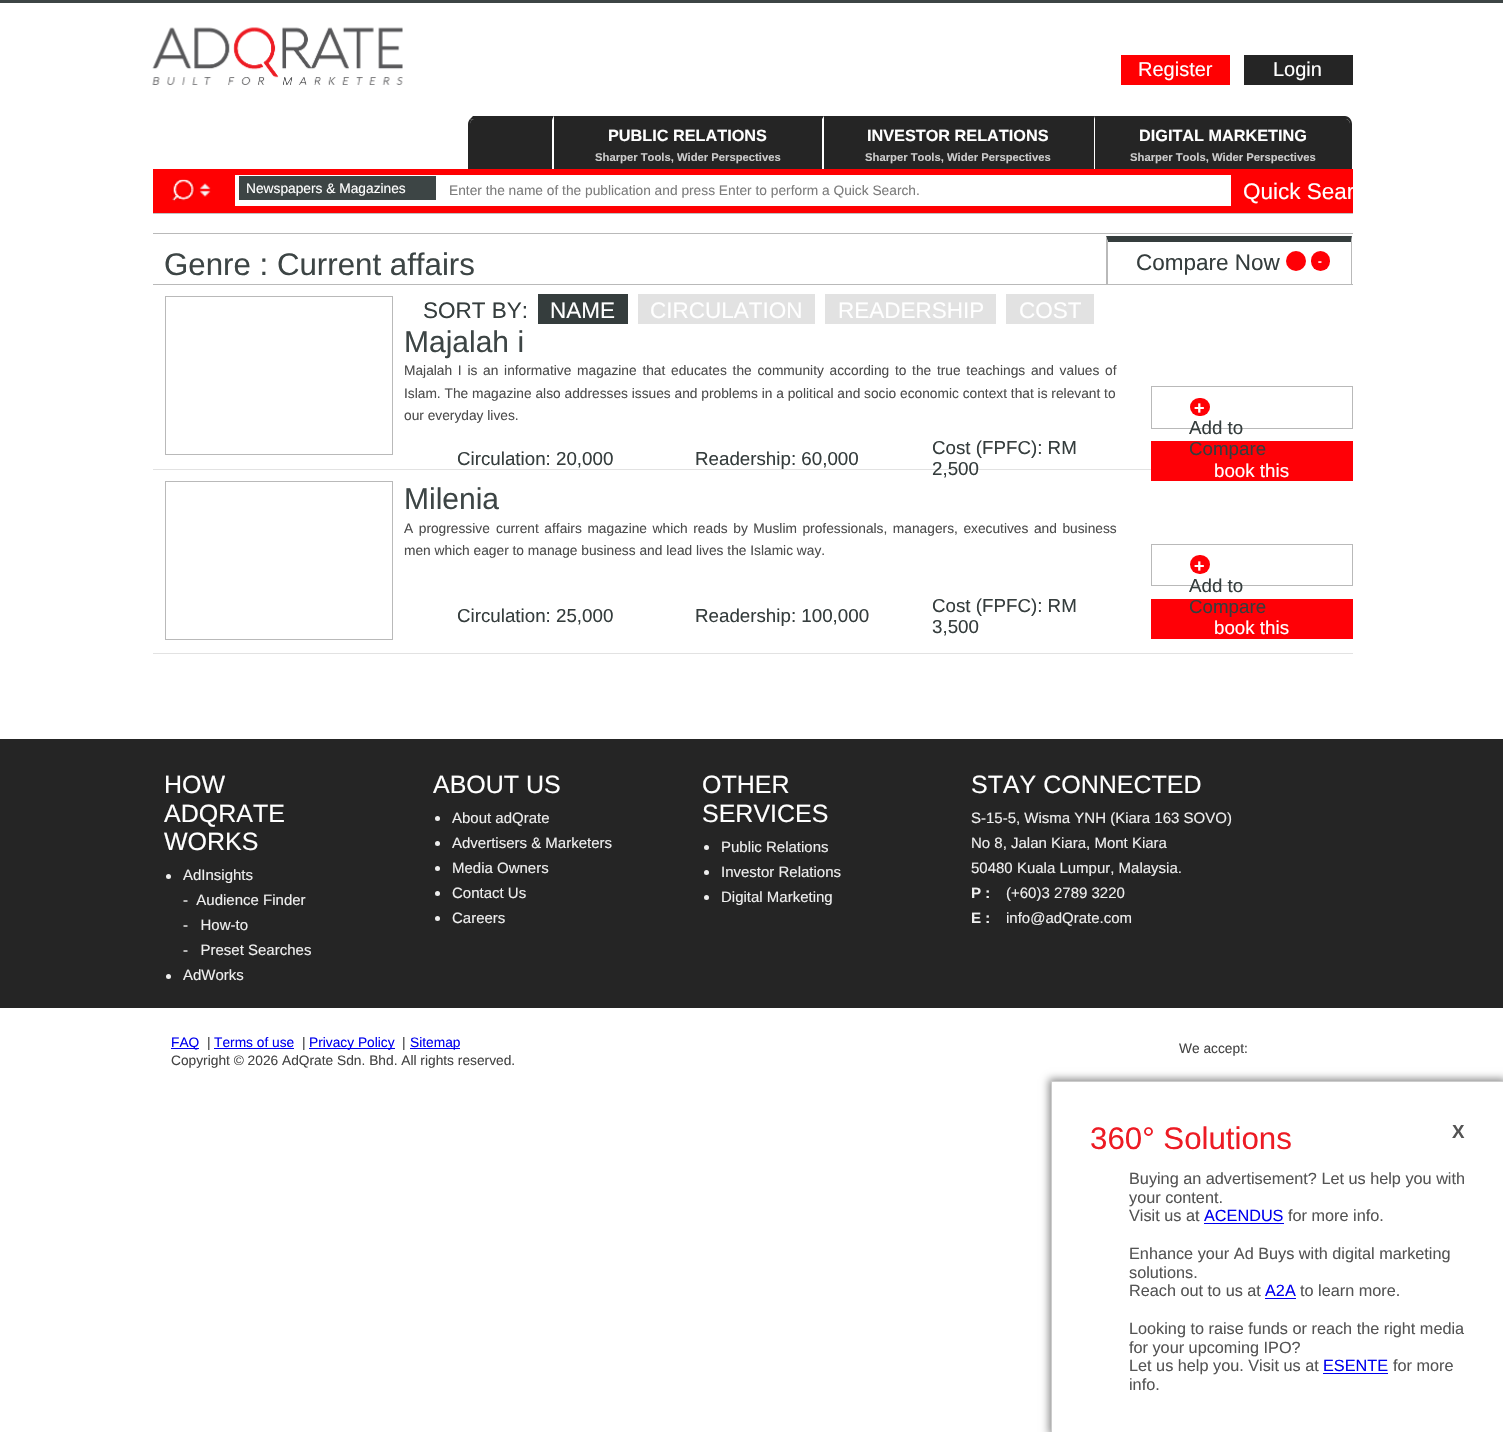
#include "include/core/SkBlurTypes.h"
#include "include/core/SkCanvas.h"
#include "include/core/SkData.h"
#include "include/core/SkFont.h"
#include "include/core/SkFontMgr.h"
#include "include/core/SkImage.h"
#include "include/core/SkMaskFilter.h"
#include "include/core/SkPaint.h"
#include "include/core/SkPathBuilder.h"
#include "include/core/SkTextBlob.h"
#include "include/effects/SkDashPathEffect.h"
#include "include/effects/SkGradientShader.h"
#include "include/utils/SkParsePath.h"

extern sk_sp<SkFontMgr> fontMgr;

void draw(SkCanvas* canvas) {
  SkPaint p;
  p.setAntiAlias(true);
  auto spacedText = [&](const char* s, float x, float y, const SkFont& font, const SkPaint& ink, float letter, float word) {
    std::vector<SkGlyphID> glyphs(font.countText(s, strlen(s), SkTextEncoding::kUTF8));
    std::vector<float> xs(glyphs.size());
    font.textToGlyphs(s, strlen(s), SkTextEncoding::kUTF8, glyphs);
    font.getXPos(glyphs, xs, x);
    float extra = 0;
    for (size_t i = 0; i < glyphs.size(); i++) {
      xs[i] += extra;
      extra += letter + word * (glyphs[i] == font.unicharToGlyph(' '));
    }
    canvas->drawTextBlob(SkTextBlob::MakeFromPosHGlyphs(glyphs, xs, y, font), 0, 0, ink);
  };
  canvas->clear(SK_ColorWHITE);
  p.setColor(SkColorSetRGB(61, 69, 69));
  canvas->drawRect(SkRect::MakeLTRB(0, 0, 1503, 3), p);
  canvas->drawImageRect(SkImages::DeferredFromEncodedData(SkData::MakeFromFileName("images/1.png")), SkRect::MakeLTRB(152, 27, 403, 85), SkSamplingOptions());
  p.setColor(SkColorSetRGB(255, 0, 2));
  canvas->drawRect(SkRect::MakeLTRB(1121, 55, 1230, 85), p);
  p.setColor(SkColorSetRGB(37, 37, 37));
  canvas->drawRect(SkRect::MakeLTRB(1244, 55, 1353, 85), p);
  canvas->drawPath(SkPathBuilder().moveTo(475, 119).lineTo(553, 119).lineTo(553, 169).lineTo(470, 169).lineTo(470, 124).cubicTo(470, 121, 472, 119, 475, 119).close().detach(), p);
  canvas->drawPath(SkPathBuilder().moveTo(475, 119).cubicTo(474, 119, 472, 119, 472, 120).lineTo(470, 119).lineTo(473, 116).lineTo(554, 116).lineTo(552, 120).lineTo(552, 119).close().detach(), p);
  p.setColor(SK_ColorWHITE);
  canvas->drawPath(SkPathBuilder().moveTo(554, 116).lineTo(554, 169).lineTo(552, 169).lineTo(552, 120).close().detach(), p);
  p.setColor(SkColorSetRGB(37, 37, 37));
  canvas->drawPath(SkPathBuilder().moveTo(468, 169).lineTo(468, 124).cubicTo(468, 122, 469, 120, 470, 119).lineTo(472, 120).cubicTo(471, 121, 470, 122, 470, 124).lineTo(470, 169).close().detach(), p);
  canvas->drawRect(SkRect::MakeLTRB(554, 116, 1095, 169), p);
  p.setColor(SK_ColorWHITE);
  canvas->drawPath(SkPathBuilder().moveTo(824, 116).lineTo(824, 169).lineTo(822, 169).lineTo(822, 119).close().detach(), p);
  canvas->drawPath(SkPathBuilder().moveTo(1095, 116).lineTo(1095, 169).lineTo(1094, 169).lineTo(1094, 119).close().detach(), p);
  p.setColor(SkColorSetRGB(37, 37, 37));
  canvas->drawPath(SkPathBuilder().moveTo(1098, 119).lineTo(1345, 119).cubicTo(1348, 119, 1350, 121, 1350, 124).lineTo(1350, 169).lineTo(1098, 169).close().detach(), p);
  canvas->drawPath(SkPathBuilder(SkPathFillType::kEvenOdd).moveTo(1095, 116).lineTo(1345, 116).cubicTo(1349, 116, 1352, 120, 1352, 124).lineTo(1352, 169).lineTo(1095, 169).close().moveTo(1098, 119).lineTo(1345, 119).cubicTo(1348, 119, 1350, 121, 1350, 124).lineTo(1350, 169).lineTo(1098, 169).close().detach(), p);
  p.setColor(SkColorSetRGB(255, 0, 2));
  canvas->drawRect(SkRect::MakeLTRB(153, 169, 1353, 213), p);
  p.setColor(SkColorSetRGB(194, 194, 194));
  canvas->drawRect(SkRect::MakeLTRB(153, 213, 1353, 214), p);
  canvas->drawImageRect(SkImages::DeferredFromEncodedData(SkData::MakeFromFileName("images/2.png")), SkRect::MakeLTRB(171, 179, 211, 202), SkSamplingOptions());
  p.setColor(SK_ColorWHITE);
  canvas->drawRect(SkRect::MakeLTRB(235, 175, 1231, 206), p);
  p.setColor(SkColorSetRGB(61, 69, 69));
  canvas->drawRect(SkRect::MakeLTRB(239, 176, 436, 200), p);
  p.setColor(SkColorSetRGB(185, 185, 185));
  canvas->drawRect(SkRect::MakeLTRB(153, 233, 1353, 234), p);
  canvas->drawRect(SkRect::MakeLTRB(153, 284, 1353, 285), p);
  p.setColor(SkColorSetRGB(53, 61, 61));
  canvas->drawPath(SkPathBuilder().moveTo(1106, 236).lineTo(1352, 236).lineTo(1351, 242).lineTo(1108, 242).close().detach(), p);
  p.setColor(SkColorSetRGB(185, 185, 185));
  canvas->drawPath(SkPathBuilder().moveTo(1352, 236).lineTo(1352, 284).lineTo(1351, 284).lineTo(1351, 242).close().detach(), p);
  canvas->drawPath(SkPathBuilder().moveTo(1106, 284).lineTo(1106, 236).lineTo(1108, 242).lineTo(1108, 284).close().detach(), p);
  p.setColor(SkColorSetRGB(255, 0, 6));
  canvas->drawCircle(1296, 261, 10, p);
  canvas->drawRoundRect(SkRect::MakeLTRB(1311, 251, 1330, 271), 9.5f, 9.5f, p);
  p.setColor(SkColorSetRGB(53, 61, 61));
  canvas->drawRect(SkRect::MakeLTRB(538, 294, 628, 324), p);
  p.setColor(SkColorSetRGB(226, 226, 226));
  canvas->drawRect(SkRect::MakeLTRB(638, 294, 815, 324), p);
  canvas->drawRect(SkRect::MakeLTRB(825, 294, 996, 324), p);
  canvas->drawRect(SkRect::MakeLTRB(1006, 294, 1094, 324), p);
  canvas->drawRect(SkRect::MakeLTRB(153, 469, 1151, 470), p);
  p.setStyle(SkPaint::kStroke_Style);
  p.setStrokeWidth(1);
  p.setColor(SkColorSetRGB(185, 185, 185));
  canvas->drawRect(SkRect::MakeLTRB(165.5f, 296.5f, 392.5f, 454.5f), p);
  canvas->drawRect(SkRect::MakeLTRB(1151.5f, 386.5f, 1352.5f, 428.5f), p);
  p.setStyle(SkPaint::kFill_Style);
  p.setColor(SkColorSetRGB(255, 0, 6));
  canvas->drawRoundRect(SkRect::MakeLTRB(1190, 398, 1210, 416), 9, 9, p);
  canvas->drawRect(SkRect::MakeLTRB(1151, 441, 1353, 481), p);
  p.setColor(SkColorSetRGB(226, 226, 226));
  canvas->drawRect(SkRect::MakeLTRB(153, 653, 1353, 654), p);
  p.setStyle(SkPaint::kStroke_Style);
  p.setColor(SkColorSetRGB(185, 185, 185));
  canvas->drawRect(SkRect::MakeLTRB(165.5f, 481.5f, 392.5f, 639.5f), p);
  canvas->drawRect(SkRect::MakeLTRB(1151.5f, 544.5f, 1352.5f, 585.5f), p);
  p.setStyle(SkPaint::kFill_Style);
  p.setColor(SkColorSetRGB(255, 0, 6));
  canvas->drawRoundRect(SkRect::MakeLTRB(1190, 555, 1210, 574), 9.5f, 9.5f, p);
  canvas->drawRect(SkRect::MakeLTRB(1151, 599, 1353, 639), p);
  p.setColor(SkColorSetRGB(37, 37, 37));
  canvas->drawRect(SkRect::MakeLTRB(0, 739, 1503, 1008), p);
  p.setColor(SkColorSetRGB(238, 238, 238));
  canvas->drawCircle(168.5f, 876.5f, 2.5f, p);
  canvas->drawCircle(168.5f, 976.5f, 2.5f, p);
  canvas->drawCircle(437.5f, 818.5f, 2.5f, p);
  canvas->drawCircle(437.5f, 843.5f, 2.5f, p);
  canvas->drawCircle(437.5f, 868.5f, 2.5f, p);
  canvas->drawCircle(437.5f, 893.5f, 2.5f, p);
  canvas->drawCircle(437.5f, 918.5f, 2.5f, p);
  canvas->drawCircle(706.5f, 847.5f, 2.5f, p);
  canvas->drawCircle(706.5f, 872.5f, 2.5f, p);
  canvas->drawCircle(706.5f, 897.5f, 2.5f, p);
  p.setColor(SkColorSetRGB(0, 0, 238));
  canvas->drawRect(SkRect::MakeLTRB(171, 1048, 199, 1049), p);
  canvas->drawRect(SkRect::MakeLTRB(214, 1048, 294, 1049), p);
  canvas->drawRect(SkRect::MakeLTRB(309, 1048, 395, 1049), p);
  canvas->drawRect(SkRect::MakeLTRB(410, 1048, 460, 1049), p);
  p.setColor(SkColorSetRGB(136, 136, 136));
  p.setMaskFilter(SkMaskFilter::MakeBlur(kNormal_SkBlurStyle, 4));
  canvas->drawRect(SkRect::MakeLTRB(1049, 1079, 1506, 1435), p);
  p.setMaskFilter(nullptr);
  p.setColor(SK_ColorWHITE);
  canvas->drawRect(SkRect::MakeLTRB(1051.5f, 1081.5f, 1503.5f, 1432.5f), p);
  p.setStyle(SkPaint::kStroke_Style);
  p.setColor(SkColorSetRGB(204, 204, 204));
  canvas->drawRect(SkRect::MakeLTRB(1051.5f, 1081.5f, 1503.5f, 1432.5f), p);
  p.setStyle(SkPaint::kFill_Style);
  p.setColor(SkColorSetRGB(0, 0, 238));
  canvas->drawRect(SkRect::MakeLTRB(1204, 1223, 1284, 1224), p);
  canvas->drawRect(SkRect::MakeLTRB(1265, 1298, 1296, 1299), p);
  canvas->drawRect(SkRect::MakeLTRB(1323, 1373, 1388, 1374), p);
  SkFont font1(fontMgr->matchFamilyStyle("Liberation Sans", SkFontStyle::Normal()), 20);
  font1.setSubpixel(true);
  p.setColor(SK_ColorWHITE);
  canvas->drawString("Register", 1138, 76, font1, p);
  canvas->drawString("Login", 1273, 76, font1, p);
  SkFont font2(fontMgr->matchFamilyStyle("Liberation Sans", SkFontStyle::Bold()), 16.25f);
  font2.setSubpixel(true);
  canvas->drawString("PUBLIC RELATIONS", 608, 141, font2, p);
  SkFont font3(fontMgr->matchFamilyStyle("Liberation Sans", SkFontStyle::Bold()), 11.25f);
  font3.setSubpixel(true);
  p.setColor(SkColorSetRGB(204, 204, 204));
  canvas->drawString("Sharper Tools, Wider Perspectives", 595, 161, font3, p);
  p.setColor(SK_ColorWHITE);
  canvas->drawString("INVESTOR RELATIONS", 867, 141, font2, p);
  p.setColor(SkColorSetRGB(204, 204, 204));
  canvas->drawString("Sharper Tools, Wider Perspectives", 865, 161, font3, p);
  p.setColor(SK_ColorWHITE);
  canvas->drawString("DIGITAL MARKETING", 1139, 141, font2, p);
  p.setColor(SkColorSetRGB(204, 204, 204));
  canvas->drawString("Sharper Tools, Wider Perspectives", 1130, 161, font3, p);
  SkFont font4(fontMgr->matchFamilyStyle("Liberation Sans", SkFontStyle::Normal()), 13.75f);
  font4.setSubpixel(true);
  p.setColor(SK_ColorWHITE);
  canvas->drawString("Newspapers & Magazines", 246, 193, font4, p);
  p.setColor(SkColorSetRGB(124, 124, 124));
  canvas->drawString("Enter the name of the publication and press Enter to perform a Quick Search.", 449, 195, font4, p);
  SkFont font5(fontMgr->matchFamilyStyle("Liberation Sans", SkFontStyle::Normal()), 22.5f);
  font5.setSubpixel(true);
  p.setColor(SK_ColorWHITE);
  canvas->drawString("Quick Sear", 1243, 199, font5, p);
  SkFont font6(fontMgr->matchFamilyStyle("Liberation Sans", SkFontStyle::Normal()), 31.25f);
  font6.setSubpixel(true);
  p.setColor(SkColorSetRGB(61, 69, 69));
  canvas->drawString("Genre : Current affairs", 164, 275, font6, p);
  p.setColor(SkColorSetRGB(53, 61, 61));
  canvas->drawString("Compare Now", 1136, 270, font5, p);
  p.setColor(SK_ColorWHITE);
  canvas->drawString("-", 1318, 265, font3, p);
  p.setColor(SkColorSetRGB(53, 61, 61));
  canvas->drawString("SORT BY:", 423, 318, font5, p);
  p.setColor(SK_ColorWHITE);
  canvas->drawString("NAME", 550, 318, font5, p);
  canvas->drawString("CIRCULATION", 650, 318, font5, p);
  canvas->drawString("READERSHIP", 838, 318, font5, p);
  canvas->drawString("COST", 1019, 318, font5, p);
  SkFont font7(fontMgr->matchFamilyStyle("Liberation Sans", SkFontStyle::Normal()), 30);
  font7.setSubpixel(true);
  p.setColor(SkColorSetRGB(61, 69, 69));
  canvas->drawString("Majalah i", 404, 352, font7, p);
  p.setColor(SkColorSetRGB(77, 77, 77));
  spacedText("Majalah I is an informative magazine that educates the community according to the true teachings and values of", 404, 375, font4, p, 0, 1.9f);
  canvas->drawString("Islam. The magazine also addresses issues and problems in a political and socio economic context that is relevant to", 404, 398, font4, p);
  canvas->drawString("our everyday lives.", 404, 420, font4, p);
  SkFont font8(fontMgr->matchFamilyStyle("Liberation Sans", SkFontStyle::Normal()), 18.75f);
  font8.setSubpixel(true);
  p.setColor(SkColorSetRGB(53, 61, 61));
  canvas->drawString("Circulation: 20,000", 457, 465, font8, p);
  canvas->drawString("Readership: 60,000", 695, 465, font8, p);
  canvas->drawString("Cost (FPFC): RM", 932, 454, font8, p);
  canvas->drawString("2,500", 932, 475, font8, p);
  SkFont font9(fontMgr->matchFamilyStyle("Liberation Sans", SkFontStyle::Bold()), 18);
  font9.setSubpixel(true);
  p.setColor(SK_ColorWHITE);
  canvas->drawString("+", 1194, 414, font9, p);
  p.setColor(SkColorSetRGB(53, 61, 61));
  canvas->drawString("Add to", 1189, 434, font8, p);
  canvas->drawString("Compare", 1189, 455, font8, p);
  p.setColor(SK_ColorWHITE);
  canvas->drawString("book this", 1214, 477, font8, p);
  p.setColor(SkColorSetRGB(61, 69, 69));
  canvas->drawString("Milenia", 404, 509, font7, p);
  p.setColor(SkColorSetRGB(77, 77, 77));
  spacedText("A progressive", 404, 533, font4, p, 0, 1.75f);
  spacedText("current affairs magazine which reads by Muslim professionals, managers, executives and business", 496, 533, font4, p, 0, 1.75f);
  canvas->drawString("men which eager to manage business and lead lives the Islamic way.", 404, 555, font4, p);
  p.setColor(SkColorSetRGB(53, 61, 61));
  canvas->drawString("Circulation: 25,000", 457, 622, font8, p);
  canvas->drawString("Readership: 100,000", 695, 622, font8, p);
  canvas->drawString("Cost (FPFC): RM", 932, 612, font8, p);
  canvas->drawString("3,500", 932, 633, font8, p);
  p.setColor(SK_ColorWHITE);
  canvas->drawString("+", 1194, 572, font9, p);
  p.setColor(SkColorSetRGB(53, 61, 61));
  canvas->drawString("Add to", 1189, 592, font8, p);
  canvas->drawString("Compare", 1189, 613, font8, p);
  p.setColor(SK_ColorWHITE);
  canvas->drawString("book this", 1214, 634, font8, p);
  SkFont font10(fontMgr->matchFamilyStyle("Liberation Sans", SkFontStyle::Normal()), 25);
  font10.setSubpixel(true);
  canvas->drawString("HOW", 164, 793, font10, p);
  canvas->drawString("ADQRATE", 164, 822, font10, p);
  canvas->drawString("WORKS", 164, 850, font10, p);
  SkFont font11(fontMgr->matchFamilyStyle("Liberation Sans", SkFontStyle::Normal()), 15);
  font11.setSubpixel(true);
  p.setColor(SkColorSetRGB(238, 238, 238));
  canvas->drawString("AdInsights", 183, 880, font11, p);
  canvas->drawString("-  Audience Finder", 183, 905, font11, p);
  canvas->drawString("-   How-to", 183, 930, font11, p);
  canvas->drawString("-   Preset Searches", 183, 955, font11, p);
  canvas->drawString("AdWorks", 183, 980, font11, p);
  p.setColor(SK_ColorWHITE);
  canvas->drawString("ABOUT US", 433, 793, font10, p);
  p.setColor(SkColorSetRGB(238, 238, 238));
  canvas->drawString("About adQrate", 452, 823, font11, p);
  canvas->drawString("Advertisers & Marketers", 452, 848, font11, p);
  canvas->drawString("Media Owners", 452, 873, font11, p);
  canvas->drawString("Contact Us", 452, 898, font11, p);
  canvas->drawString("Careers", 452, 923, font11, p);
  p.setColor(SK_ColorWHITE);
  canvas->drawString("OTHER", 702, 793, font10, p);
  canvas->drawString("SERVICES", 702, 822, font10, p);
  p.setColor(SkColorSetRGB(238, 238, 238));
  canvas->drawString("Public Relations", 721, 852, font11, p);
  canvas->drawString("Investor Relations", 721, 877, font11, p);
  canvas->drawString("Digital Marketing", 721, 902, font11, p);
  p.setColor(SK_ColorWHITE);
  canvas->drawString("STAY CONNECTED", 971, 793, font10, p);
  p.setColor(SkColorSetRGB(238, 238, 238));
  canvas->drawString("S-15-5, Wisma YNH (Kiara 163 SOVO)", 971, 823, font11, p);
  canvas->drawString("No 8, Jalan Kiara, Mont Kiara", 971, 848, font11, p);
  canvas->drawString("50480 Kuala Lumpur, Malaysia.", 971, 873, font11, p);
  SkFont font12(fontMgr->matchFamilyStyle("Liberation Sans", SkFontStyle::Bold()), 15);
  font12.setSubpixel(true);
  canvas->drawString("P :", 971, 898, font12, p);
  canvas->drawString("(+60)3 2789 3220", 1006, 898, font11, p);
  canvas->drawString("E :", 971, 923, font12, p);
  canvas->drawString("info@adQrate.com", 1006, 923, font11, p);
  p.setColor(SkColorSetRGB(0, 0, 238));
  canvas->drawString("FAQ", 171, 1047, font4, p);
  p.setColor(SkColorSetRGB(68, 68, 68));
  canvas->drawString("|", 207, 1047, font4, p);
  p.setColor(SkColorSetRGB(0, 0, 238));
  canvas->drawString("Terms of use", 214, 1047, font4, p);
  p.setColor(SkColorSetRGB(68, 68, 68));
  canvas->drawString("|", 302, 1047, font4, p);
  p.setColor(SkColorSetRGB(0, 0, 238));
  canvas->drawString("Privacy Policy", 309, 1047, font4, p);
  p.setColor(SkColorSetRGB(68, 68, 68));
  canvas->drawString("|", 402, 1047, font4, p);
  p.setColor(SkColorSetRGB(0, 0, 238));
  canvas->drawString("Sitemap", 410, 1047, font4, p);
  p.setColor(SkColorSetRGB(68, 68, 68));
  canvas->drawString("Copyright © 2026 AdQrate Sdn. Bhd. All rights reserved.", 171, 1065, font4, p);
  canvas->drawString("We accept:", 1179, 1053, font4, p);
  p.setColor(SkColorSetRGB(237, 27, 36));
  canvas->drawString("360° Solutions", 1090, 1149, font6, p);
  SkFont font13(fontMgr->matchFamilyStyle("Liberation Sans", SkFontStyle::Bold()), 18.75f);
  font13.setSubpixel(true);
  p.setColor(SkColorSetRGB(84, 84, 84));
  canvas->drawString("X", 1452, 1138, font13, p);
  SkFont font14(fontMgr->matchFamilyStyle("Liberation Sans", SkFontStyle::Normal()), 16.25f);
  font14.setSubpixel(true);
  canvas->drawString("Buying an advertisement? Let us help you with", 1129, 1184, font14, p);
  canvas->drawString("your content.", 1129, 1203, font14, p);
  canvas->drawString("Visit us at", 1129, 1221, font14, p);
  p.setColor(SkColorSetRGB(0, 0, 238));
  canvas->drawString("ACENDUS", 1204, 1221, font14, p);
  p.setColor(SkColorSetRGB(84, 84, 84));
  canvas->drawString("for more info.", 1288, 1221, font14, p);
  canvas->drawString("Enhance your Ad Buys with digital marketing", 1129, 1259, font14, p);
  canvas->drawString("solutions.", 1129, 1278, font14, p);
  canvas->drawString("Reach out to us at", 1129, 1296, font14, p);
  p.setColor(SkColorSetRGB(0, 0, 238));
  canvas->drawString("A2A", 1265, 1296, font14, p);
  p.setColor(SkColorSetRGB(84, 84, 84));
  canvas->drawString("to learn more.", 1300, 1296, font14, p);
  canvas->drawString("Looking to raise funds or reach the right media", 1129, 1334, font14, p);
  canvas->drawString("for your upcoming IPO?", 1129, 1353, font14, p);
  canvas->drawString("Let us help you. Visit us at", 1129, 1371, font14, p);
  p.setColor(SkColorSetRGB(0, 0, 238));
  canvas->drawString("ESENTE", 1323, 1371, font14, p);
  p.setColor(SkColorSetRGB(84, 84, 84));
  canvas->drawString("for more", 1393, 1371, font14, p);
  canvas->drawString("info.", 1129, 1390, font14, p);
}
